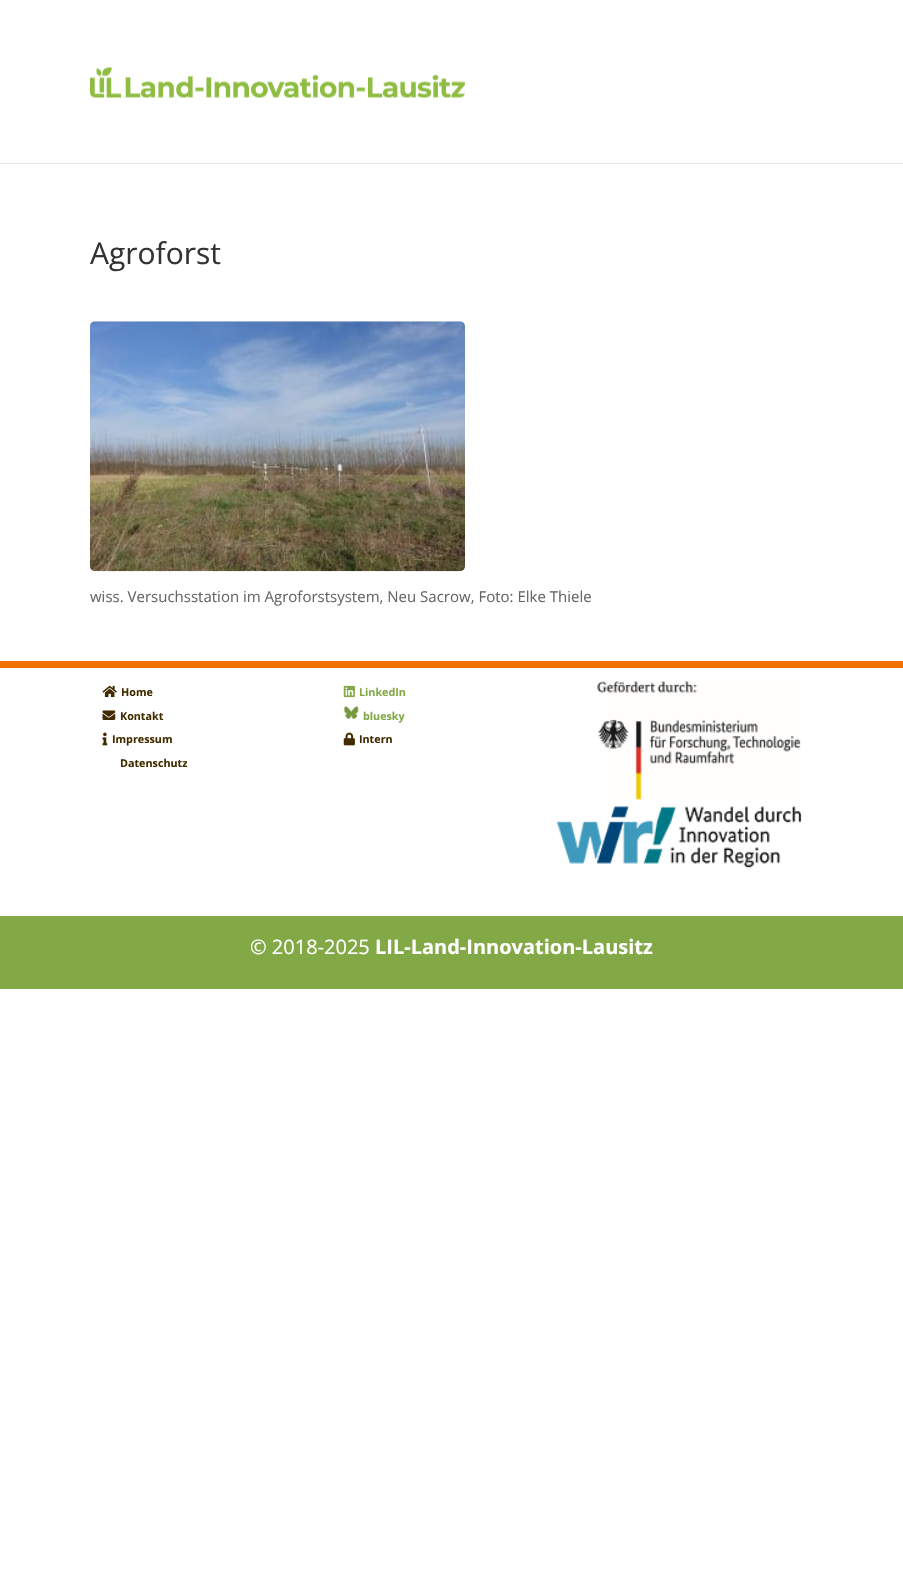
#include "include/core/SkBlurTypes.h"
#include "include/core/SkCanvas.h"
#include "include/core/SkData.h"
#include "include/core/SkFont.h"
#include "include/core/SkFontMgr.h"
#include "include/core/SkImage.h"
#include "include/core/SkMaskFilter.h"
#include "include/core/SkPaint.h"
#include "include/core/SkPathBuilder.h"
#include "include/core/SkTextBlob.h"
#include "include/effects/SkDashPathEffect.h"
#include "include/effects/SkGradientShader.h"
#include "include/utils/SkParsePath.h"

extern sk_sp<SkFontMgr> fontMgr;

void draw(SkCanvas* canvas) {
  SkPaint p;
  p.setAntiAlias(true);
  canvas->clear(SK_ColorWHITE);
  p.setColor(SkColorSetRGB(230, 230, 230));
  canvas->drawPath(SkPathBuilder().moveTo(0, 162).lineTo(0, 164).lineTo(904, 164).lineTo(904, 1).lineTo(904, 162).close().detach(), p);
  p.setColor(SK_ColorWHITE);
  canvas->drawRect(SkRect::MakeLTRB(0, 162, 903, 163), p);
  canvas->drawImageRect(SkImages::DeferredFromEncodedData(SkData::MakeFromFileName("images/1.png")), SkRect::MakeLTRB(90, 67, 465, 98), SkSamplingOptions());
  canvas->drawImageRect(SkImages::DeferredFromEncodedData(SkData::MakeFromFileName("images/2.png")), SkRect::MakeLTRB(90, 321, 465, 572), SkSamplingOptions());
  p.setColor(SkColorSetRGB(242, 114, 0));
  canvas->drawRect(SkRect::MakeLTRB(0, 661, 903, 668), p);
  canvas->drawImageRect(SkImages::DeferredFromEncodedData(SkData::MakeFromFileName("images/3.png")), SkRect::MakeLTRB(102, 685, 117, 698), SkSamplingOptions());
  canvas->drawImageRect(SkImages::DeferredFromEncodedData(SkData::MakeFromFileName("images/4.png")), SkRect::MakeLTRB(102, 710, 116, 720), SkSamplingOptions());
  canvas->drawImageRect(SkImages::DeferredFromEncodedData(SkData::MakeFromFileName("images/5.png")), SkRect::MakeLTRB(102, 732, 108, 746), SkSamplingOptions());
  canvas->drawImageRect(SkImages::DeferredFromEncodedData(SkData::MakeFromFileName("images/6.png")), SkRect::MakeLTRB(343, 685, 355, 698), SkSamplingOptions());
  canvas->drawImageRect(SkImages::DeferredFromEncodedData(SkData::MakeFromFileName("images/7.png")), SkRect::MakeLTRB(343, 706, 359, 720), SkSamplingOptions());
  canvas->drawImageRect(SkImages::DeferredFromEncodedData(SkData::MakeFromFileName("images/8.png")), SkRect::MakeLTRB(343, 732, 355, 746), SkSamplingOptions());
  canvas->drawImageRect(SkImages::DeferredFromEncodedData(SkData::MakeFromFileName("images/9.png")), SkRect::MakeLTRB(597, 681, 801, 800), SkSamplingOptions());
  canvas->drawImageRect(SkImages::DeferredFromEncodedData(SkData::MakeFromFileName("images/10.png")), SkRect::MakeLTRB(556, 806, 802, 868), SkSamplingOptions());
  p.setColor(SkColorSetRGB(131, 168, 70));
  canvas->drawRect(SkRect::MakeLTRB(0, 916, 903, 989), p);
  SkFont font1(fontMgr->matchFamilyStyle("Open Sans", SkFontStyle::Normal()), 30);
  font1.setSubpixel(true);
  p.setColor(SkColorSetRGB(51, 51, 51));
  canvas->drawString("Agroforst", 90, 264, font1, p);
  SkFont font2(fontMgr->matchFamilyStyle("Open Sans", SkFontStyle::Normal()), 15);
  font2.setSubpixel(true);
  p.setColor(SkColorSetRGB(102, 102, 102));
  canvas->drawString("wiss. Versuchsstation im Agroforstsystem, Neu Sacrow, Foto: Elke Thiele", 90, 602, font2, p);
  SkFont font3(fontMgr->matchFamilyStyle("Open Sans", SkFontStyle::Bold()), 10.75f);
  font3.setSubpixel(true);
  p.setColor(SkColorSetRGB(65, 44, 0));
  canvas->drawString("Home", 121, 696, font3, p);
  canvas->drawString("Kontakt", 120, 720, font3, p);
  canvas->drawString("Impressum", 112, 743, font3, p);
  canvas->drawString("Datenschutz", 120, 767, font3, p);
  p.setColor(SkColorSetRGB(131, 168, 70));
  canvas->drawString("LinkedIn", 359, 696, font3, p);
  canvas->drawString("bluesky", 363, 720, font3, p);
  p.setColor(SkColorSetRGB(65, 44, 0));
  canvas->drawString("Intern", 359, 743, font3, p);
  SkFont font4(fontMgr->matchFamilyStyle("Open Sans", SkFontStyle::Normal()), 20);
  font4.setSubpixel(true);
  p.setColor(SK_ColorWHITE);
  canvas->drawString("© 2018-2025", 250, 954, font4, p);
  SkFont font5(fontMgr->matchFamilyStyle("Open Sans", SkFontStyle::Bold()), 20);
  font5.setSubpixel(true);
  canvas->drawString("LIL-Land-Innovation-Lausitz", 375, 954, font5, p);
}
